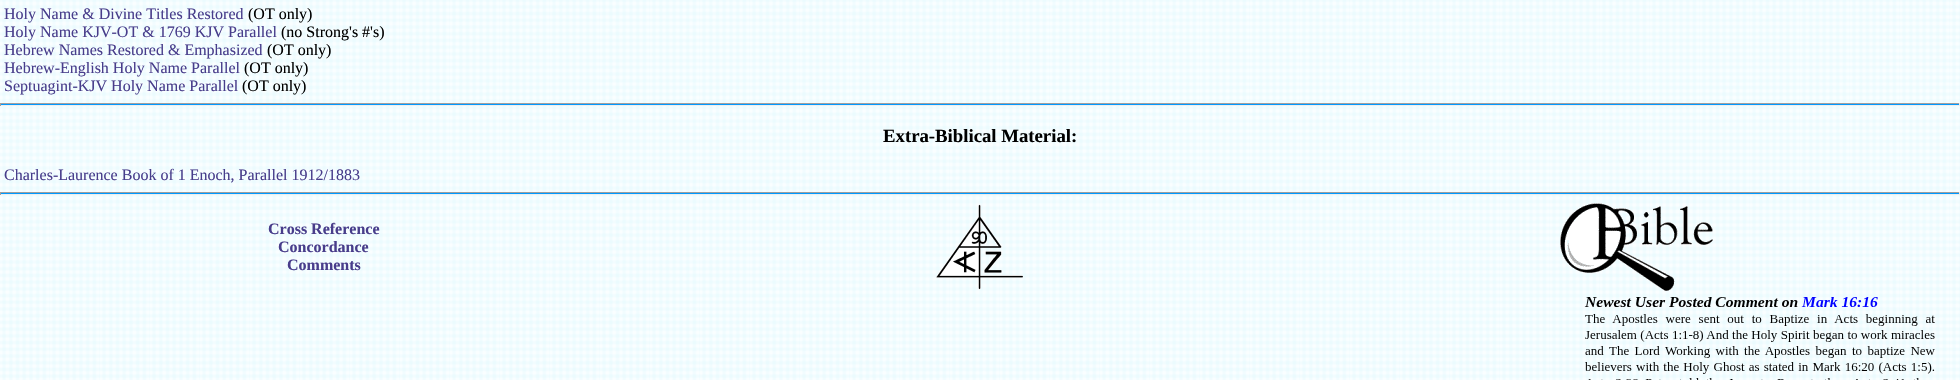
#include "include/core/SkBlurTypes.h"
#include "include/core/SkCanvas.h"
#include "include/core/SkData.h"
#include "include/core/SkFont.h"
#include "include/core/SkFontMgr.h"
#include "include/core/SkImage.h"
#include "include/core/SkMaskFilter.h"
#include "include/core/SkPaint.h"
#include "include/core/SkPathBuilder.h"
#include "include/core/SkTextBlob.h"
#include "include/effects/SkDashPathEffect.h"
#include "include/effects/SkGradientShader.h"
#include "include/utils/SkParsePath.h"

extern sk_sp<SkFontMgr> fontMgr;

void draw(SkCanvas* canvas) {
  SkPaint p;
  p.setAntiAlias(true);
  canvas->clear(SK_ColorWHITE);
  canvas->drawImageRect(SkImages::DeferredFromEncodedData(SkData::MakeFromFileName("images/1.png")), SkRect::MakeLTRB(0, 0, 1960, 380), SkSamplingOptions());
  p.setColor(SkColorSetRGB(0, 153, 255));
  canvas->drawRect(SkRect::MakeLTRB(0, 104, 1960, 105), p);
  p.setColor(SkColorSetRGB(159, 159, 159));
  canvas->drawRect(SkRect::MakeLTRB(0, 103, 1960, 104), p);
  p.setColor(SkColorSetRGB(238, 238, 238));
  canvas->drawRect(SkRect::MakeLTRB(1959, 103, 1960, 106), p);
  canvas->drawRect(SkRect::MakeLTRB(0, 105, 1960, 106), p);
  p.setColor(SkColorSetRGB(159, 159, 159));
  canvas->drawRect(SkRect::MakeLTRB(0, 103, 1, 106), p);
  p.setColor(SkColorSetRGB(0, 153, 255));
  canvas->drawRect(SkRect::MakeLTRB(0, 193, 1960, 194), p);
  p.setColor(SkColorSetRGB(159, 159, 159));
  canvas->drawRect(SkRect::MakeLTRB(0, 192, 1960, 193), p);
  p.setColor(SkColorSetRGB(238, 238, 238));
  canvas->drawRect(SkRect::MakeLTRB(1959, 192, 1960, 195), p);
  canvas->drawRect(SkRect::MakeLTRB(0, 194, 1960, 195), p);
  p.setColor(SkColorSetRGB(159, 159, 159));
  canvas->drawRect(SkRect::MakeLTRB(0, 192, 1, 195), p);
  canvas->drawImageRect(SkImages::DeferredFromEncodedData(SkData::MakeFromFileName("images/2.png")), SkRect::MakeLTRB(936, 204, 1023, 290), SkSamplingOptions());
  canvas->drawImageRect(SkImages::DeferredFromEncodedData(SkData::MakeFromFileName("images/3.png")), SkRect::MakeLTRB(1560, 203, 1713, 291), SkSamplingOptions());
  canvas->drawImageRect(SkImages::DeferredFromEncodedData(SkData::MakeFromFileName("images/4.png")), SkRect::MakeLTRB(1584, 297, 1935, 380), SkSamplingOptions());
  SkFont font1(fontMgr->matchFamilyStyle("Liberation Serif", SkFontStyle::Normal()), 16);
  font1.setSubpixel(true);
  p.setColor(SkColorSetRGB(72, 61, 139));
  canvas->drawString("Holy Name & Divine Titles Restored", 4, 19, font1, p);
  p.setColor(SK_ColorBLACK);
  canvas->drawString("(OT only)", 248, 19, font1, p);
  p.setColor(SkColorSetRGB(72, 61, 139));
  canvas->drawString("Holy Name KJV-OT & 1769 KJV Parallel", 4, 37, font1, p);
  p.setColor(SK_ColorBLACK);
  canvas->drawString("(no Strong's #'s)", 281, 37, font1, p);
  p.setColor(SkColorSetRGB(72, 61, 139));
  canvas->drawString("Hebrew Names Restored & Emphasized", 4, 55, font1, p);
  p.setColor(SK_ColorBLACK);
  canvas->drawString("(OT only)", 267, 55, font1, p);
  p.setColor(SkColorSetRGB(72, 61, 139));
  canvas->drawString("Hebrew-English Holy Name Parallel", 4, 73, font1, p);
  p.setColor(SK_ColorBLACK);
  canvas->drawString("(OT only)", 244, 73, font1, p);
  p.setColor(SkColorSetRGB(72, 61, 139));
  canvas->drawString("Septuagint-KJV Holy Name Parallel", 4, 91, font1, p);
  p.setColor(SK_ColorBLACK);
  canvas->drawString("(OT only)", 242, 91, font1, p);
  SkFont font2(fontMgr->matchFamilyStyle("Liberation Serif", SkFontStyle::Bold()), 18.75f);
  font2.setSubpixel(true);
  canvas->drawString("Extra-Biblical Material:", 883, 142, font2, p);
  p.setColor(SkColorSetRGB(72, 61, 139));
  canvas->drawString("Charles-Laurence Book of 1 Enoch, Parallel 1912/1883", 4, 180, font1, p);
  SkFont font3(fontMgr->matchFamilyStyle("Liberation Serif", SkFontStyle::Bold()), 16);
  font3.setSubpixel(true);
  canvas->drawString("Cross Reference", 268, 234, font3, p);
  canvas->drawString("Concordance", 278, 252, font3, p);
  canvas->drawString("Comments", 287, 270, font3, p);
}
